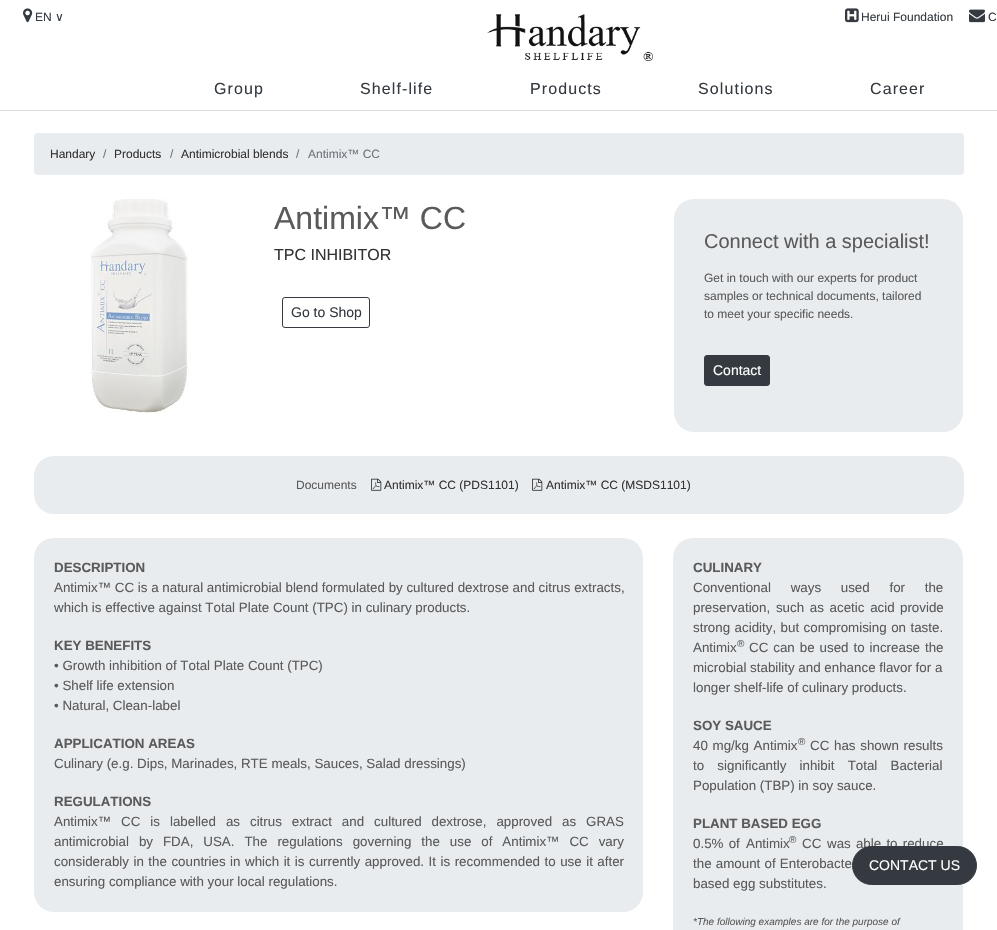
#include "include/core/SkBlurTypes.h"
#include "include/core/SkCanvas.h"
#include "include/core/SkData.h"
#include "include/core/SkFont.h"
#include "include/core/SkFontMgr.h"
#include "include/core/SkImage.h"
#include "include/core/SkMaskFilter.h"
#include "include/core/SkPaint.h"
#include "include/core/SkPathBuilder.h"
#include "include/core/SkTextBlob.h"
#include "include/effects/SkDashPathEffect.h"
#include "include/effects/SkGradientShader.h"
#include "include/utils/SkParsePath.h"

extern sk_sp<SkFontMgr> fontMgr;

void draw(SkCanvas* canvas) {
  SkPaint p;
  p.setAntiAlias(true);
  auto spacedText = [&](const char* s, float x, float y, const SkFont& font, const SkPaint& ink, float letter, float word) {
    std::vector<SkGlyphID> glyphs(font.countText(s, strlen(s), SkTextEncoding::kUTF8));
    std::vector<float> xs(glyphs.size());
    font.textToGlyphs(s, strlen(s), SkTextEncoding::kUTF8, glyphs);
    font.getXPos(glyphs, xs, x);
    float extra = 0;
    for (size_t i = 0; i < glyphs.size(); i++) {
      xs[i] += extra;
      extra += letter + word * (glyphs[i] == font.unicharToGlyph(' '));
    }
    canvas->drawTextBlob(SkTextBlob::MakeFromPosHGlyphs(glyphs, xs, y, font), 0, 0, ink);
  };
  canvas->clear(SK_ColorWHITE);
  canvas->drawImageRect(SkImages::DeferredFromEncodedData(SkData::MakeFromFileName("images/1.png")), SkRect::MakeLTRB(23, 8, 33, 23), SkSamplingOptions());
  canvas->drawImageRect(SkImages::DeferredFromEncodedData(SkData::MakeFromFileName("images/2.png")), SkRect::MakeLTRB(845, 8, 859, 23), SkSamplingOptions());
  canvas->drawImageRect(SkImages::DeferredFromEncodedData(SkData::MakeFromFileName("images/3.png")), SkRect::MakeLTRB(969, 9, 985, 23), SkSamplingOptions());
  canvas->drawImageRect(SkImages::DeferredFromEncodedData(SkData::MakeFromFileName("images/4.png")), SkRect::MakeLTRB(487, 14, 653, 61), SkSamplingOptions());
  p.setColor(SkColorSetRGB(221, 221, 221));
  canvas->drawRect(SkRect::MakeLTRB(0, 110, 997, 111), p);
  p.setColor(SkColorSetRGB(233, 236, 239));
  canvas->drawRoundRect(SkRect::MakeLTRB(34, 133, 964, 175), 4, 4, p);
  canvas->drawImageRect(SkImages::DeferredFromEncodedData(SkData::MakeFromFileName("images/5.png")), SkRect::MakeLTRB(91, 199, 189, 413), SkSamplingOptions());
  p.setStyle(SkPaint::kStroke_Style);
  p.setStrokeWidth(1);
  p.setColor(SkColorSetRGB(52, 58, 64));
  canvas->drawRoundRect(SkRect::MakeLTRB(282.5f, 297.5f, 369.5f, 327.5f), 2.5f, 2.5f, p);
  p.setStyle(SkPaint::kFill_Style);
  p.setColor(SkColorSetRGB(233, 236, 239));
  canvas->drawRoundRect(SkRect::MakeLTRB(674, 199, 963, 432), 20, 20, p);
  p.setColor(SkColorSetRGB(52, 58, 64));
  canvas->drawRoundRect(SkRect::MakeLTRB(704.5f, 355.5f, 769.5f, 385.5f), 2.5f, 2.5f, p);
  p.setStyle(SkPaint::kStroke_Style);
  canvas->drawRoundRect(SkRect::MakeLTRB(704.5f, 355.5f, 769.5f, 385.5f), 2.5f, 2.5f, p);
  p.setStyle(SkPaint::kFill_Style);
  p.setColor(SkColorSetRGB(233, 236, 239));
  canvas->drawRoundRect(SkRect::MakeLTRB(34, 456, 964, 514), 20, 20, p);
  canvas->drawImageRect(SkImages::DeferredFromEncodedData(SkData::MakeFromFileName("images/6.png")), SkRect::MakeLTRB(371, 478, 382, 491), SkSamplingOptions());
  canvas->drawImageRect(SkImages::DeferredFromEncodedData(SkData::MakeFromFileName("images/6.png")), SkRect::MakeLTRB(532, 478, 543, 491), SkSamplingOptions());
  canvas->drawRoundRect(SkRect::MakeLTRB(34, 538, 643, 912), 20, 20, p);
  canvas->drawRoundRect(SkRect::MakeLTRB(673, 538, 963, 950), 20, 20, p);
  SkFont font1(fontMgr->matchFamilyStyle("Liberation Sans", SkFontStyle::Normal()), 12);
  font1.setSubpixel(true);
  p.setColor(SkColorSetRGB(52, 58, 64));
  canvas->drawString("EN", 35, 21, font1, p);
  SkFont font2(fontMgr->matchFamilyStyle("DejaVu Sans", SkFontStyle::Normal()), 12);
  font2.setSubpixel(true);
  canvas->drawString("∨", 55, 21, font2, p);
  canvas->drawString("Herui Foundation", 861, 21, font1, p);
  canvas->drawString("C", 988, 21, font1, p);
  SkFont font3(fontMgr->matchFamilyStyle("Liberation Sans", SkFontStyle::Normal()), 16);
  font3.setSubpixel(true);
  spacedText("Group", 214, 94, font3, p, 1.1f, 0);
  spacedText("Shelf-life", 360, 94, font3, p, 1.1f, 0);
  spacedText("Products", 530, 94, font3, p, 1.1f, 0);
  spacedText("Solutions", 698, 94, font3, p, 1.1f, 0);
  spacedText("Career", 870, 94, font3, p, 1.1f, 0);
  p.setColor(SkColorSetRGB(51, 51, 51));
  canvas->drawString("Handary", 50, 158, font1, p);
  p.setColor(SkColorSetRGB(108, 117, 125));
  canvas->drawString("/", 103, 158, font1, p);
  p.setColor(SkColorSetRGB(51, 51, 51));
  canvas->drawString("Products", 114, 158, font1, p);
  p.setColor(SkColorSetRGB(108, 117, 125));
  canvas->drawString("/", 170, 158, font1, p);
  p.setColor(SkColorSetRGB(51, 51, 51));
  canvas->drawString("Antimicrobial blends", 181, 158, font1, p);
  p.setColor(SkColorSetRGB(108, 117, 125));
  canvas->drawString("/", 296, 158, font1, p);
  canvas->drawString("Antimix™ CC", 308, 158, font1, p);
  SkFont font4(fontMgr->matchFamilyStyle("Liberation Sans", SkFontStyle::Normal()), 32);
  font4.setSubpixel(true);
  p.setColor(SkColorSetRGB(90, 90, 90));
  canvas->drawString("Antimix™ CC", 274, 229, font4, p);
  p.setColor(SkColorSetRGB(51, 51, 51));
  canvas->drawString("TPC INHIBITOR", 274, 260, font3, p);
  SkFont font5(fontMgr->matchFamilyStyle("Liberation Sans", SkFontStyle::Normal()), 14);
  font5.setSubpixel(true);
  p.setColor(SkColorSetRGB(52, 58, 64));
  canvas->drawString("Go to Shop", 291, 317, font5, p);
  SkFont font6(fontMgr->matchFamilyStyle("Liberation Sans", SkFontStyle::Normal()), 20);
  font6.setSubpixel(true);
  p.setColor(SkColorSetRGB(90, 90, 90));
  canvas->drawString("Connect with a specialist!", 704, 248, font6, p);
  canvas->drawString("Get in touch with our experts for product", 704, 282, font1, p);
  canvas->drawString("samples or technical documents, tailored", 704, 300, font1, p);
  canvas->drawString("to meet your specific needs.", 704, 318, font1, p);
  p.setColor(SK_ColorWHITE);
  canvas->drawString("Contact", 713, 375, font5, p);
  p.setColor(SkColorSetRGB(90, 90, 90));
  canvas->drawString("Documents", 296, 489, font1, p);
  p.setColor(SkColorSetRGB(51, 51, 51));
  canvas->drawString("Antimix™ CC (PDS1101)", 384, 489, font1, p);
  canvas->drawString("Antimix™ CC (MSDS1101)", 546, 489, font1, p);
  SkFont font7(fontMgr->matchFamilyStyle("Liberation Sans", SkFontStyle::Bold()), 13.35f);
  font7.setSubpixel(true);
  p.setColor(SkColorSetRGB(90, 90, 90));
  canvas->drawString("DESCRIPTION", 54, 572, font7, p);
  SkFont font8(fontMgr->matchFamilyStyle("Liberation Sans", SkFontStyle::Normal()), 13.35f);
  font8.setSubpixel(true);
  canvas->drawString("Antimix™ CC is a natural antimicrobial blend formulated by cultured dextrose and citrus extracts,", 54, 592, font8, p);
  canvas->drawString("which is effective against Total Plate Count (TPC) in culinary products.", 54, 612, font8, p);
  canvas->drawString("KEY BENEFITS", 54, 650, font7, p);
  canvas->drawString("• Growth inhibition of Total Plate Count (TPC)", 54, 670, font8, p);
  canvas->drawString("• Shelf life extension", 54, 690, font8, p);
  canvas->drawString("• Natural, Clean-label", 54, 710, font8, p);
  canvas->drawString("APPLICATION AREAS", 54, 748, font7, p);
  canvas->drawString("Culinary (e.g. Dips, Marinades, RTE meals, Sauces, Salad dressings)", 54, 768, font8, p);
  canvas->drawString("REGULATIONS", 54, 806, font7, p);
  spacedText("Antimix™ CC is labelled as citrus extract and cultured dextrose, approved as GRAS", 54, 826, font8, p, 0, 6.25f);
  spacedText("antimicrobial by FDA, USA. The regulations governing the use of Antimix™ CC vary", 54, 846, font8, p, 0, 6.25f);
  spacedText("considerably in the countries in which it is currently approved. It is recommended to use it after", 54, 866, font8, p, 0, 0.8f);
  canvas->drawString("ensuring compliance with your local regulations.", 54, 886, font8, p);
  canvas->drawString("CULINARY", 693, 572, font7, p);
  spacedText("Conventional ways used for the", 693, 592, font8, p, 0, 16);
  spacedText("preservation, such as acetic acid", 693, 612, font8, p, 0, 2);
  canvas->drawString("provide", 900, 612, font8, p);
  spacedText("strong acidity, but compromising on taste.", 693, 632, font8, p, 0, 0.75f);
  canvas->drawString("Antimix", 693, 652, font8, p);
  SkFont font9(fontMgr->matchFamilyStyle("Liberation Sans", SkFontStyle::Normal()), 10);
  font9.setSubpixel(true);
  canvas->drawString("®", 737, 647, font9, p);
  spacedText("CC can be used to increase the", 749, 652, font8, p, 0, 1.25f);
  canvas->drawString("microbial stability and enhance flavor for a", 693, 672, font8, p);
  canvas->drawString("longer shelf-life of culinary products.", 693, 692, font8, p);
  canvas->drawString("SOY SAUCE", 693, 730, font7, p);
  spacedText("40 mg/kg Antimix", 693, 750, font8, p, 0, 1);
  canvas->drawString("®", 798, 745, font9, p);
  spacedText("CC has shown results", 810, 750, font8, p, 0, 1);
  spacedText("to significantly inhibit Total Bacterial", 693, 770, font8, p, 0, 9.5f);
  canvas->drawString("Population (TBP) in soy sauce.", 693, 790, font8, p);
  canvas->drawString("PLANT BASED EGG", 693, 828, font7, p);
  spacedText("0.5% of", 693, 848, font8, p, 0, 1.5f);
  canvas->drawString("Antimix", 746, 848, font8, p);
  canvas->drawString("®", 789, 843, font9, p);
  canvas->drawString("CC", 802, 848, font8, p);
  spacedText("was able to reduce", 827, 848, font8, p, 0, 1.5f);
  spacedText("the amount of Enterobacte", 693, 868, font8, p, 0, 0.5f);
  canvas->drawString("based egg substitutes.", 693, 888, font8, p);
  SkFont font10(fontMgr->matchFamilyStyle("Liberation Sans", SkFontStyle::Italic()), 10);
  font10.setSubpixel(true);
  canvas->drawString("*The following examples are for the purpose of", 693, 925, font10, p);
  p.setColor(SkColorSetRGB(52, 58, 64));
  canvas->drawRoundRect(SkRect::MakeLTRB(852.5f, 846.5f, 976.5f, 884.5f), 19, 19, p);
  p.setStyle(SkPaint::kStroke_Style);
  canvas->drawRoundRect(SkRect::MakeLTRB(852.5f, 846.5f, 976.5f, 884.5f), 19, 19, p);
  p.setStyle(SkPaint::kFill_Style);
  p.setColor(SK_ColorWHITE);
  canvas->drawString("CONTACT US", 869, 870, font5, p);
}
